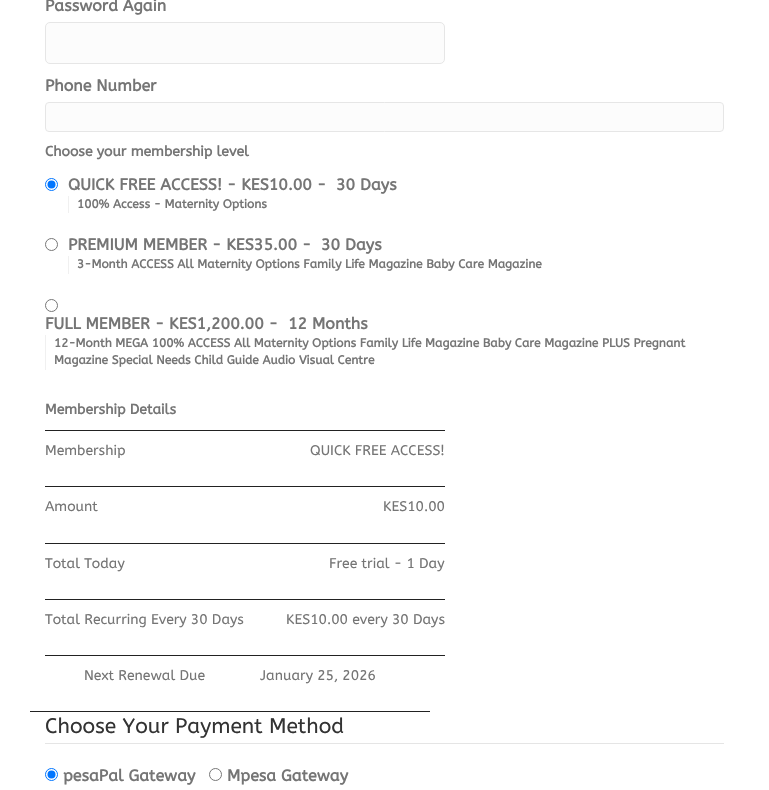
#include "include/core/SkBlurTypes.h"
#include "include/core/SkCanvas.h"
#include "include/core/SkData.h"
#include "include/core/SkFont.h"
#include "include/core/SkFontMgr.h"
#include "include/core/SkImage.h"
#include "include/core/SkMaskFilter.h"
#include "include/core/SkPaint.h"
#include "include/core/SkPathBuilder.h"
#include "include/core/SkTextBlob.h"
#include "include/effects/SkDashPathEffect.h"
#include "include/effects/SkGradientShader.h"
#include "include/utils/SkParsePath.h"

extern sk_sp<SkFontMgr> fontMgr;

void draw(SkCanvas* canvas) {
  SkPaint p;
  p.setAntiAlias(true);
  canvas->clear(SK_ColorWHITE);
  p.setColor(SkColorSetRGB(252, 252, 252));
  canvas->drawRoundRect(SkRect::MakeLTRB(45.5f, 22.5f, 444.5f, 63.5f), 4.5f, 4.5f, p);
  p.setStyle(SkPaint::kStroke_Style);
  p.setStrokeWidth(1);
  p.setColor(SkColorSetRGB(230, 230, 230));
  canvas->drawRoundRect(SkRect::MakeLTRB(45.5f, 22.5f, 444.5f, 63.5f), 4.5f, 4.5f, p);
  p.setStyle(SkPaint::kFill_Style);
  p.setColor(SkColorSetRGB(252, 252, 252));
  canvas->drawRoundRect(SkRect::MakeLTRB(45.5f, 102.5f, 723.5f, 131.5f), 3.5f, 3.5f, p);
  p.setStyle(SkPaint::kStroke_Style);
  p.setColor(SkColorSetRGB(230, 230, 230));
  canvas->drawRoundRect(SkRect::MakeLTRB(45.5f, 102.5f, 723.5f, 131.5f), 3.5f, 3.5f, p);
  p.setColor(SkColorSetRGB(0, 117, 255));
  canvas->drawCircle(51.5f, 184.5f, 6, p);
  p.setStyle(SkPaint::kFill_Style);
  canvas->drawCircle(51.5f, 184.5f, 4, p);
  p.setColor(SkColorSetRGB(240, 240, 240));
  canvas->drawRect(SkRect::MakeLTRB(68, 196, 69, 213), p);
  p.setStyle(SkPaint::kStroke_Style);
  p.setColor(SkColorSetRGB(118, 118, 118));
  canvas->drawCircle(51.5f, 244.5f, 6, p);
  p.setStyle(SkPaint::kFill_Style);
  p.setColor(SkColorSetRGB(240, 240, 240));
  canvas->drawRect(SkRect::MakeLTRB(68, 256, 69, 274), p);
  p.setStyle(SkPaint::kStroke_Style);
  p.setColor(SkColorSetRGB(118, 118, 118));
  canvas->drawCircle(51.5f, 305.5f, 6, p);
  p.setStyle(SkPaint::kFill_Style);
  p.setColor(SkColorSetRGB(240, 240, 240));
  canvas->drawRect(SkRect::MakeLTRB(45, 335, 46, 370), p);
  p.setColor(SkColorSetRGB(34, 34, 34));
  canvas->drawRect(SkRect::MakeLTRB(45, 430, 445, 431), p);
  canvas->drawRect(SkRect::MakeLTRB(45, 486, 445, 487), p);
  canvas->drawRect(SkRect::MakeLTRB(45, 543, 445, 544), p);
  canvas->drawRect(SkRect::MakeLTRB(45, 599, 445, 600), p);
  canvas->drawRect(SkRect::MakeLTRB(45, 655, 445, 656), p);
  canvas->drawRect(SkRect::MakeLTRB(30, 711, 430, 712), p);
  p.setColor(SkColorSetRGB(229, 229, 229));
  canvas->drawRect(SkRect::MakeLTRB(45, 743, 724, 744), p);
  p.setStyle(SkPaint::kStroke_Style);
  p.setColor(SkColorSetRGB(0, 117, 255));
  canvas->drawCircle(51.5f, 774.5f, 6, p);
  p.setStyle(SkPaint::kFill_Style);
  canvas->drawCircle(51.5f, 774.5f, 4, p);
  p.setStyle(SkPaint::kStroke_Style);
  p.setColor(SkColorSetRGB(118, 118, 118));
  canvas->drawCircle(215.5f, 774.5f, 6, p);
  SkFont font1(fontMgr->matchFamilyStyle("ABeeZee", SkFontStyle::Bold()), 16);
  font1.setSubpixel(true);
  p.setStyle(SkPaint::kFill_Style);
  p.setColor(SkColorSetRGB(117, 117, 117));
  canvas->drawString("Password Again", 45, 11, font1, p);
  canvas->drawString("Phone Number", 45, 91, font1, p);
  SkFont font2(fontMgr->matchFamilyStyle("ABeeZee", SkFontStyle::Bold()), 14);
  font2.setSubpixel(true);
  canvas->drawString("Choose your membership level", 45, 156, font2, p);
  canvas->drawString("QUICK FREE ACCESS! - KES10.00 -", 68, 190, font1, p);
  canvas->drawString("30 Days", 336, 190, font1, p);
  SkFont font3(fontMgr->matchFamilyStyle("ABeeZee", SkFontStyle::Bold()), 12);
  font3.setSubpixel(true);
  canvas->drawString("100% Access - Maternity Options", 77, 208, font3, p);
  canvas->drawString("PREMIUM MEMBER - KES35.00 -", 68, 250, font1, p);
  canvas->drawString("30 Days", 321, 250, font1, p);
  canvas->drawString("3-Month ACCESS All Maternity Options Family Life Magazine Baby Care Magazine", 77, 268, font3, p);
  canvas->drawString("FULL MEMBER - KES1,200.00 -", 45, 329, font1, p);
  canvas->drawString("12 Months", 288, 329, font1, p);
  canvas->drawString("12-Month MEGA 100% ACCESS All Maternity Options Family Life Magazine Baby Care Magazine PLUS Pregnant", 54, 347, font3, p);
  canvas->drawString("Magazine Special Needs Child Guide Audio Visual Centre", 54, 364, font3, p);
  canvas->drawString("Membership Details", 45, 414, font2, p);
  SkFont font4(fontMgr->matchFamilyStyle("ABeeZee", SkFontStyle::Normal()), 14);
  font4.setSubpixel(true);
  canvas->drawString("Membership", 45, 455, font4, p);
  canvas->drawString("QUICK FREE ACCESS!", 310, 455, font4, p);
  canvas->drawString("Amount", 45, 511, font4, p);
  canvas->drawString("KES10.00", 383, 511, font4, p);
  canvas->drawString("Total Today", 45, 568, font4, p);
  canvas->drawString("Free trial - 1 Day", 329, 568, font4, p);
  canvas->drawString("Total Recurring Every 30 Days", 45, 624, font4, p);
  canvas->drawString("KES10.00 every 30 Days", 286, 624, font4, p);
  canvas->drawString("Next Renewal Due", 84, 680, font4, p);
  canvas->drawString("January 25, 2026", 260, 680, font4, p);
  SkFont font5(fontMgr->matchFamilyStyle("ABeeZee", SkFontStyle::Normal()), 21);
  font5.setSubpixel(true);
  p.setColor(SkColorSetRGB(51, 51, 51));
  canvas->drawString("Choose Your Payment Method", 45, 733, font5, p);
  p.setColor(SkColorSetRGB(117, 117, 117));
  canvas->drawString("pesaPal Gateway", 63, 781, font1, p);
  canvas->drawString("Mpesa Gateway", 227, 781, font1, p);
}
